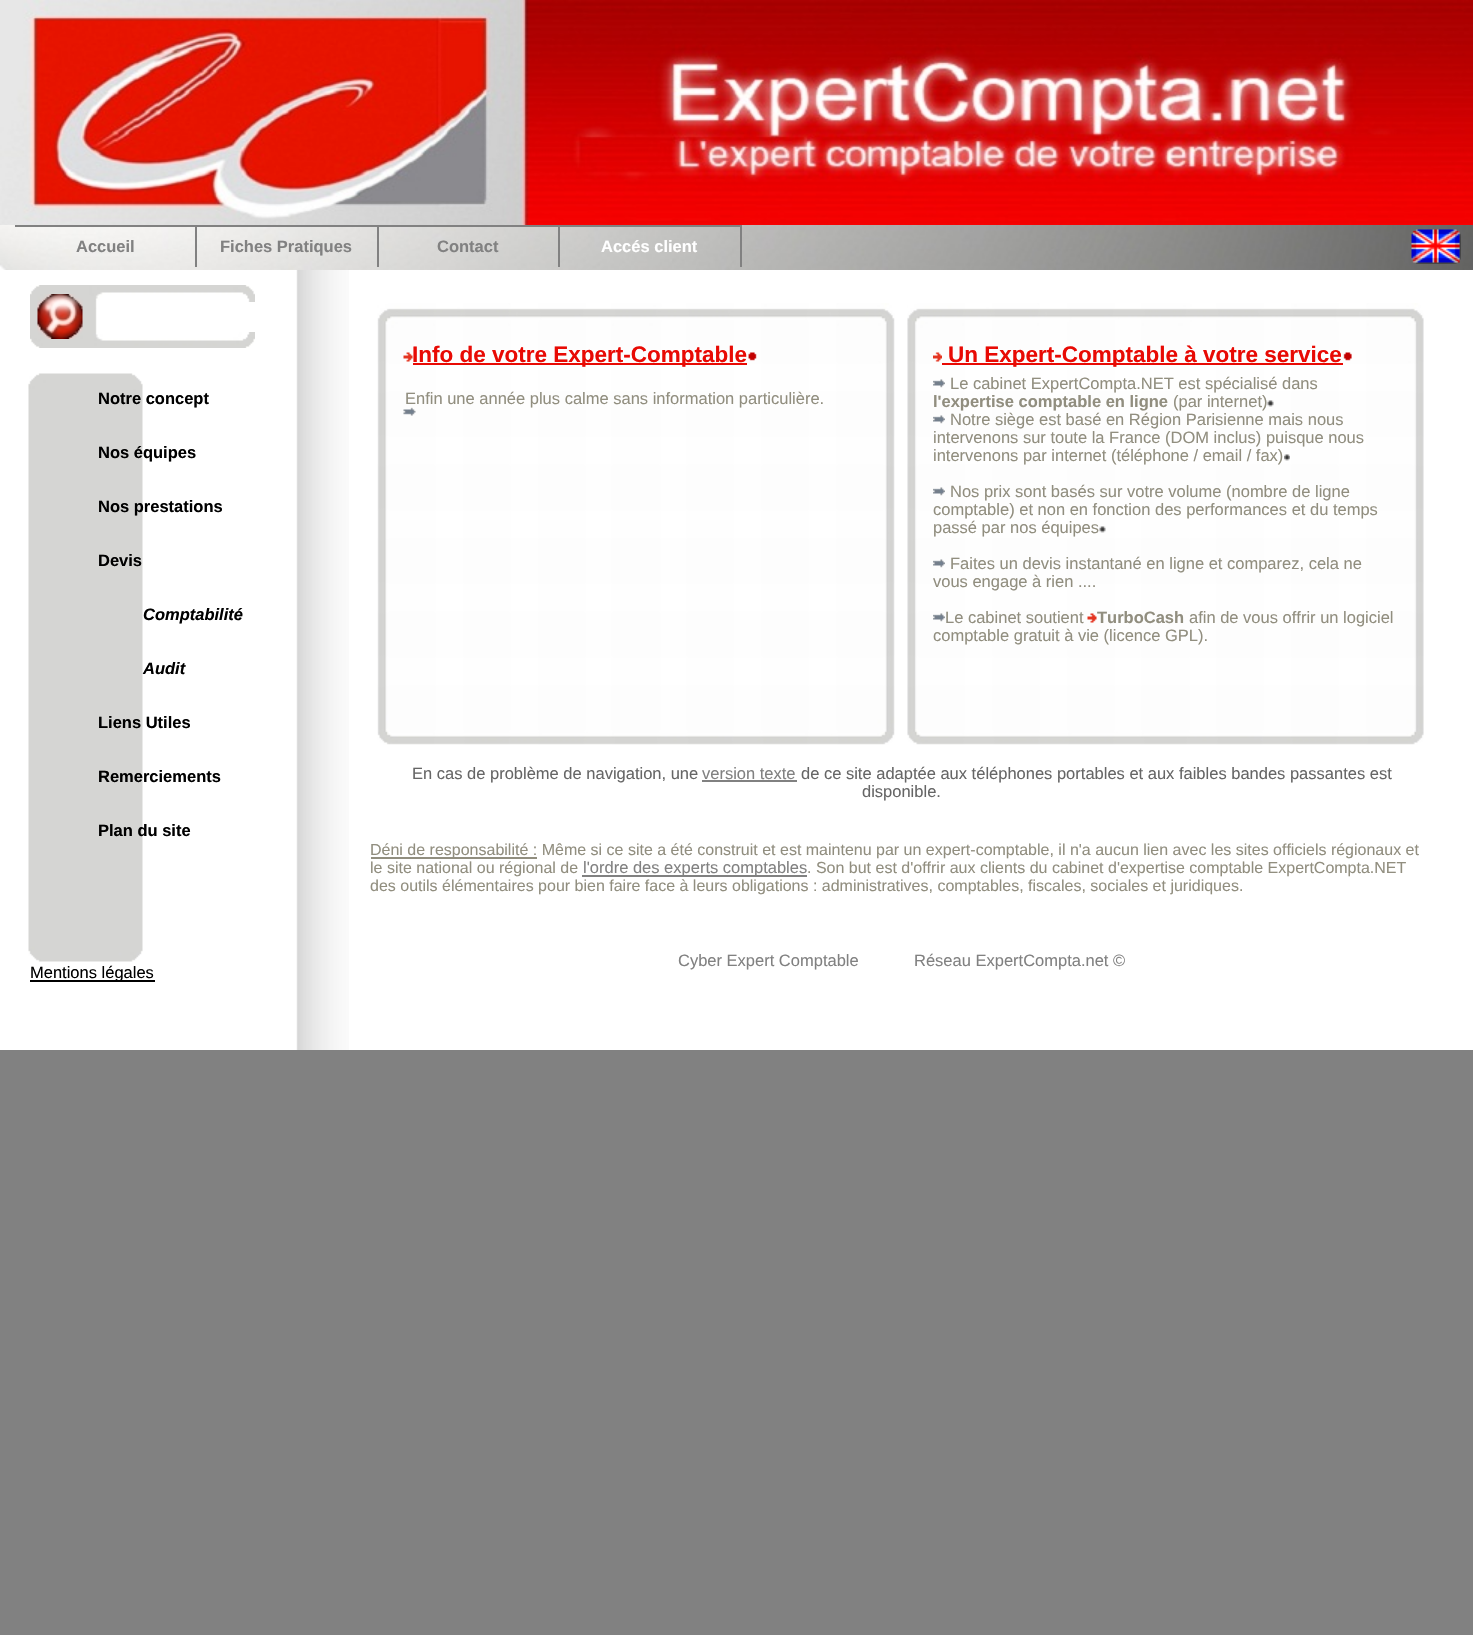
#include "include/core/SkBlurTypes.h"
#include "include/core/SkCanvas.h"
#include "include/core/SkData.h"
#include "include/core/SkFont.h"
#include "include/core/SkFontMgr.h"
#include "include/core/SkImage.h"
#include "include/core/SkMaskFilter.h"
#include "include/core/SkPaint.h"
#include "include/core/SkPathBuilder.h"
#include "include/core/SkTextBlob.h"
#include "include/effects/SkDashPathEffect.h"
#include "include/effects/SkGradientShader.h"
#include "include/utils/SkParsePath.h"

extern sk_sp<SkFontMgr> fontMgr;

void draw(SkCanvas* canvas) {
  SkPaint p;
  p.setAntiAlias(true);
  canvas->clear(SkColorSetRGB(129, 129, 129));
  p.setColor(SK_ColorWHITE);
  canvas->drawRect(SkRect::MakeLTRB(0, 270, 1473, 1050), p);
  canvas->drawImageRect(SkImages::DeferredFromEncodedData(SkData::MakeFromFileName("images/1.png")), SkRect::MakeLTRB(0, 0, 1473, 225), SkSamplingOptions());
  canvas->drawImageRect(SkImages::DeferredFromEncodedData(SkData::MakeFromFileName("images/2.png")), SkRect::MakeLTRB(0, 225, 1473, 270), SkSamplingOptions());
  p.setColor(SkColorSetRGB(129, 129, 129));
  canvas->drawRect(SkRect::MakeLTRB(15, 225, 378, 227), p);
  canvas->drawRect(SkRect::MakeLTRB(195, 225, 197, 267), p);
  canvas->drawRect(SkRect::MakeLTRB(377, 225, 379, 267), p);
  canvas->drawRect(SkRect::MakeLTRB(378, 225, 741, 227), p);
  canvas->drawRect(SkRect::MakeLTRB(558, 225, 560, 267), p);
  canvas->drawRect(SkRect::MakeLTRB(740, 225, 742, 267), p);
  canvas->drawImageRect(SkImages::DeferredFromEncodedData(SkData::MakeFromFileName("images/3.png")), SkRect::MakeLTRB(1411, 229, 1461, 264), SkSamplingOptions());
  canvas->drawImageRect(SkImages::DeferredFromEncodedData(SkData::MakeFromFileName("images/4.png")), SkRect::MakeLTRB(30, 285, 255, 348), SkSamplingOptions());
  canvas->drawImageRect(SkImages::DeferredFromEncodedData(SkData::MakeFromFileName("images/5.png")), SkRect::MakeLTRB(37, 294, 83, 339), SkSamplingOptions());
  p.setColor(SK_ColorWHITE);
  canvas->drawRect(SkRect::MakeLTRB(248, 302, 255, 332), p);
  canvas->drawImageRect(SkImages::DeferredFromEncodedData(SkData::MakeFromFileName("images/6.png")), SkRect::MakeLTRB(28, 373, 143, 962), SkSamplingOptions());
  p.setColor(SK_ColorBLACK);
  canvas->drawRect(SkRect::MakeLTRB(30, 980, 155, 982), p);
  canvas->drawImageRect(SkImages::DeferredFromEncodedData(SkData::MakeFromFileName("images/7.png")), SkRect::MakeLTRB(296, 270, 349, 1050), SkSamplingOptions());
  canvas->drawImageRect(SkImages::DeferredFromEncodedData(SkData::MakeFromFileName("images/8.png")), SkRect::MakeLTRB(377, 303, 895, 745), SkSamplingOptions());
  canvas->drawImageRect(SkImages::DeferredFromEncodedData(SkData::MakeFromFileName("images/9.png")), SkRect::MakeLTRB(403, 352, 413, 362), SkSamplingOptions());
  p.setColor(SkColorSetRGB(232, 10, 4));
  canvas->drawRect(SkRect::MakeLTRB(413, 363, 747, 365), p);
  canvas->drawImageRect(SkImages::DeferredFromEncodedData(SkData::MakeFromFileName("images/10.png")), SkRect::MakeLTRB(748, 352, 757, 361), SkSamplingOptions());
  canvas->drawImageRect(SkImages::DeferredFromEncodedData(SkData::MakeFromFileName("images/12.png")), SkRect::MakeLTRB(907, 303, 1424, 745), SkSamplingOptions());
  canvas->drawImageRect(SkImages::DeferredFromEncodedData(SkData::MakeFromFileName("images/13.png")), SkRect::MakeLTRB(933, 352, 942, 362), SkSamplingOptions());
  canvas->drawRect(SkRect::MakeLTRB(942, 363, 1343, 365), p);
  canvas->drawImageRect(SkImages::DeferredFromEncodedData(SkData::MakeFromFileName("images/14.png")), SkRect::MakeLTRB(1343, 352, 1352, 361), SkSamplingOptions());
  canvas->drawImageRect(SkImages::DeferredFromEncodedData(SkData::MakeFromFileName("images/15.png")), SkRect::MakeLTRB(933, 379, 945, 388), SkSamplingOptions());
  canvas->drawImageRect(SkImages::DeferredFromEncodedData(SkData::MakeFromFileName("images/16.png")), SkRect::MakeLTRB(1267, 400, 1274, 407), SkSamplingOptions());
  canvas->drawImageRect(SkImages::DeferredFromEncodedData(SkData::MakeFromFileName("images/17.png")), SkRect::MakeLTRB(933, 415, 945, 424), SkSamplingOptions());
  canvas->drawImageRect(SkImages::DeferredFromEncodedData(SkData::MakeFromFileName("images/18.png")), SkRect::MakeLTRB(1284, 454, 1290, 461), SkSamplingOptions());
  canvas->drawImageRect(SkImages::DeferredFromEncodedData(SkData::MakeFromFileName("images/17.png")), SkRect::MakeLTRB(933, 487, 945, 496), SkSamplingOptions());
  canvas->drawImageRect(SkImages::DeferredFromEncodedData(SkData::MakeFromFileName("images/16.png")), SkRect::MakeLTRB(1099, 526, 1106, 533), SkSamplingOptions());
  canvas->drawImageRect(SkImages::DeferredFromEncodedData(SkData::MakeFromFileName("images/17.png")), SkRect::MakeLTRB(933, 559, 945, 568), SkSamplingOptions());
  canvas->drawImageRect(SkImages::DeferredFromEncodedData(SkData::MakeFromFileName("images/17.png")), SkRect::MakeLTRB(933, 613, 945, 622), SkSamplingOptions());
  canvas->drawImageRect(SkImages::DeferredFromEncodedData(SkData::MakeFromFileName("images/19.png")), SkRect::MakeLTRB(1087, 613, 1097, 623), SkSamplingOptions());
  p.setColor(SkColorSetRGB(129, 129, 129));
  canvas->drawRect(SkRect::MakeLTRB(702, 780, 797, 782), p);
  p.setColor(SkColorSetRGB(145, 142, 127));
  canvas->drawRect(SkRect::MakeLTRB(371, 857, 537, 859), p);
  p.setColor(SkColorSetRGB(129, 129, 129));
  canvas->drawRect(SkRect::MakeLTRB(582, 875, 807, 877), p);
  SkFont font1(fontMgr->matchFamilyStyle("Liberation Sans", SkFontStyle::Bold()), 16.5f);
  font1.setSubpixel(true);
  canvas->drawString("Accueil", 76, 252, font1, p);
  canvas->drawString("Fiches Pratiques", 220, 252, font1, p);
  canvas->drawString("Contact", 437, 252, font1, p);
  p.setColor(SK_ColorWHITE);
  canvas->drawString("Accés client", 601, 252, font1, p);
  p.setColor(SK_ColorBLACK);
  canvas->drawString("Notre concept", 98, 404, font1, p);
  canvas->drawString("Nos équipes", 98, 458, font1, p);
  canvas->drawString("Nos prestations", 98, 512, font1, p);
  canvas->drawString("Devis", 98, 566, font1, p);
  SkFont font2(fontMgr->matchFamilyStyle("Liberation Sans", SkFontStyle::BoldItalic()), 16.5f);
  font2.setSubpixel(true);
  canvas->drawString("Comptabilité", 143, 620, font2, p);
  canvas->drawString("Audit", 143, 674, font2, p);
  canvas->drawString("Liens Utiles", 98, 728, font1, p);
  canvas->drawString("Remerciements", 98, 782, font1, p);
  canvas->drawString("Plan du site", 98, 836, font1, p);
  SkFont font3(fontMgr->matchFamilyStyle("Liberation Sans", SkFontStyle::Normal()), 16.5f);
  font3.setSubpixel(true);
  canvas->drawString("Mentions légales", 30, 978, font3, p);
  SkFont font4(fontMgr->matchFamilyStyle("Liberation Sans", SkFontStyle::Bold()), 22.5f);
  font4.setSubpixel(true);
  p.setColor(SkColorSetRGB(232, 10, 4));
  canvas->drawString("Info de votre Expert-Comptable", 412, 362, font4, p);
  p.setColor(SkColorSetRGB(145, 142, 127));
  canvas->drawString("Enfin une année plus calme sans information particulière.", 405, 404, font3, p);
  canvas->drawImageRect(SkImages::DeferredFromEncodedData(SkData::MakeFromFileName("images/11.png")), SkRect::MakeLTRB(403, 407, 416, 416), SkSamplingOptions());
  p.setColor(SkColorSetRGB(232, 10, 4));
  canvas->drawString("Un Expert-Comptable à votre service", 948, 362, font4, p);
  p.setColor(SkColorSetRGB(145, 142, 127));
  canvas->drawString("Le cabinet ExpertCompta.NET est spécialisé dans", 950, 389, font3, p);
  canvas->drawString("l'expertise comptable en ligne", 933, 407, font1, p);
  canvas->drawString("(par internet)", 1173, 407, font3, p);
  canvas->drawString("Notre siège est basé en Région Parisienne mais nous", 950, 425, font3, p);
  canvas->drawString("intervenons sur toute la France (DOM inclus) puisque nous", 933, 443, font3, p);
  canvas->drawString("intervenons par internet (téléphone / email / fax)", 933, 461, font3, p);
  canvas->drawString("Nos prix sont basés sur votre volume (nombre de ligne", 950, 497, font3, p);
  canvas->drawString("comptable) et non en fonction des performances et du temps", 933, 515, font3, p);
  canvas->drawString("passé par nos équipes", 933, 533, font3, p);
  canvas->drawString("Faites un devis instantané en ligne et comparez, cela ne", 950, 569, font3, p);
  canvas->drawString("vous engage à rien ....", 933, 587, font3, p);
  canvas->drawString("Le cabinet soutient", 945, 623, font3, p);
  canvas->drawString("TurboCash", 1097, 623, font1, p);
  canvas->drawString("afin de vous offrir un logiciel", 1189, 623, font3, p);
  canvas->drawString("comptable gratuit à vie (licence GPL).", 933, 641, font3, p);
  p.setColor(SkColorSetRGB(102, 102, 102));
  canvas->drawString("En cas de problème de navigation, une", 412, 779, font3, p);
  p.setColor(SkColorSetRGB(129, 129, 129));
  canvas->drawString("version texte", 702, 779, font3, p);
  p.setColor(SkColorSetRGB(102, 102, 102));
  canvas->drawString("de ce site adaptée aux téléphones portables et aux faibles bandes passantes est", 801, 779, font3, p);
  canvas->drawString("disponible.", 862, 797, font3, p);
  SkFont font5(fontMgr->matchFamilyStyle("Liberation Sans", SkFontStyle::Normal()), 16);
  font5.setSubpixel(true);
  p.setColor(SkColorSetRGB(145, 142, 127));
  canvas->drawString("Déni de responsabilité : Même si ce site a été construit et est maintenu par un expert-comptable, il n'a aucun lien avec les sites officiels régionaux et", 370, 855, font5, p);
  canvas->drawString("le site national ou régional de", 370, 873, font5, p);
  p.setColor(SkColorSetRGB(129, 129, 129));
  canvas->drawString("l'ordre des experts comptables", 583, 873, font3, p);
  p.setColor(SkColorSetRGB(145, 142, 127));
  canvas->drawString(". Son but est d'offrir aux clients du cabinet d'expertise comptable ExpertCompta.NET", 807, 873, font5, p);
  canvas->drawString("des outils élémentaires pour bien faire face à leurs obligations : administratives, comptables, fiscales, sociales et juridiques.", 370, 891, font5, p);
  p.setColor(SkColorSetRGB(129, 129, 129));
  canvas->drawString("Cyber Expert Comptable", 678, 966, font3, p);
  canvas->drawString("Réseau ExpertCompta.net ©", 914, 966, font3, p);
}
